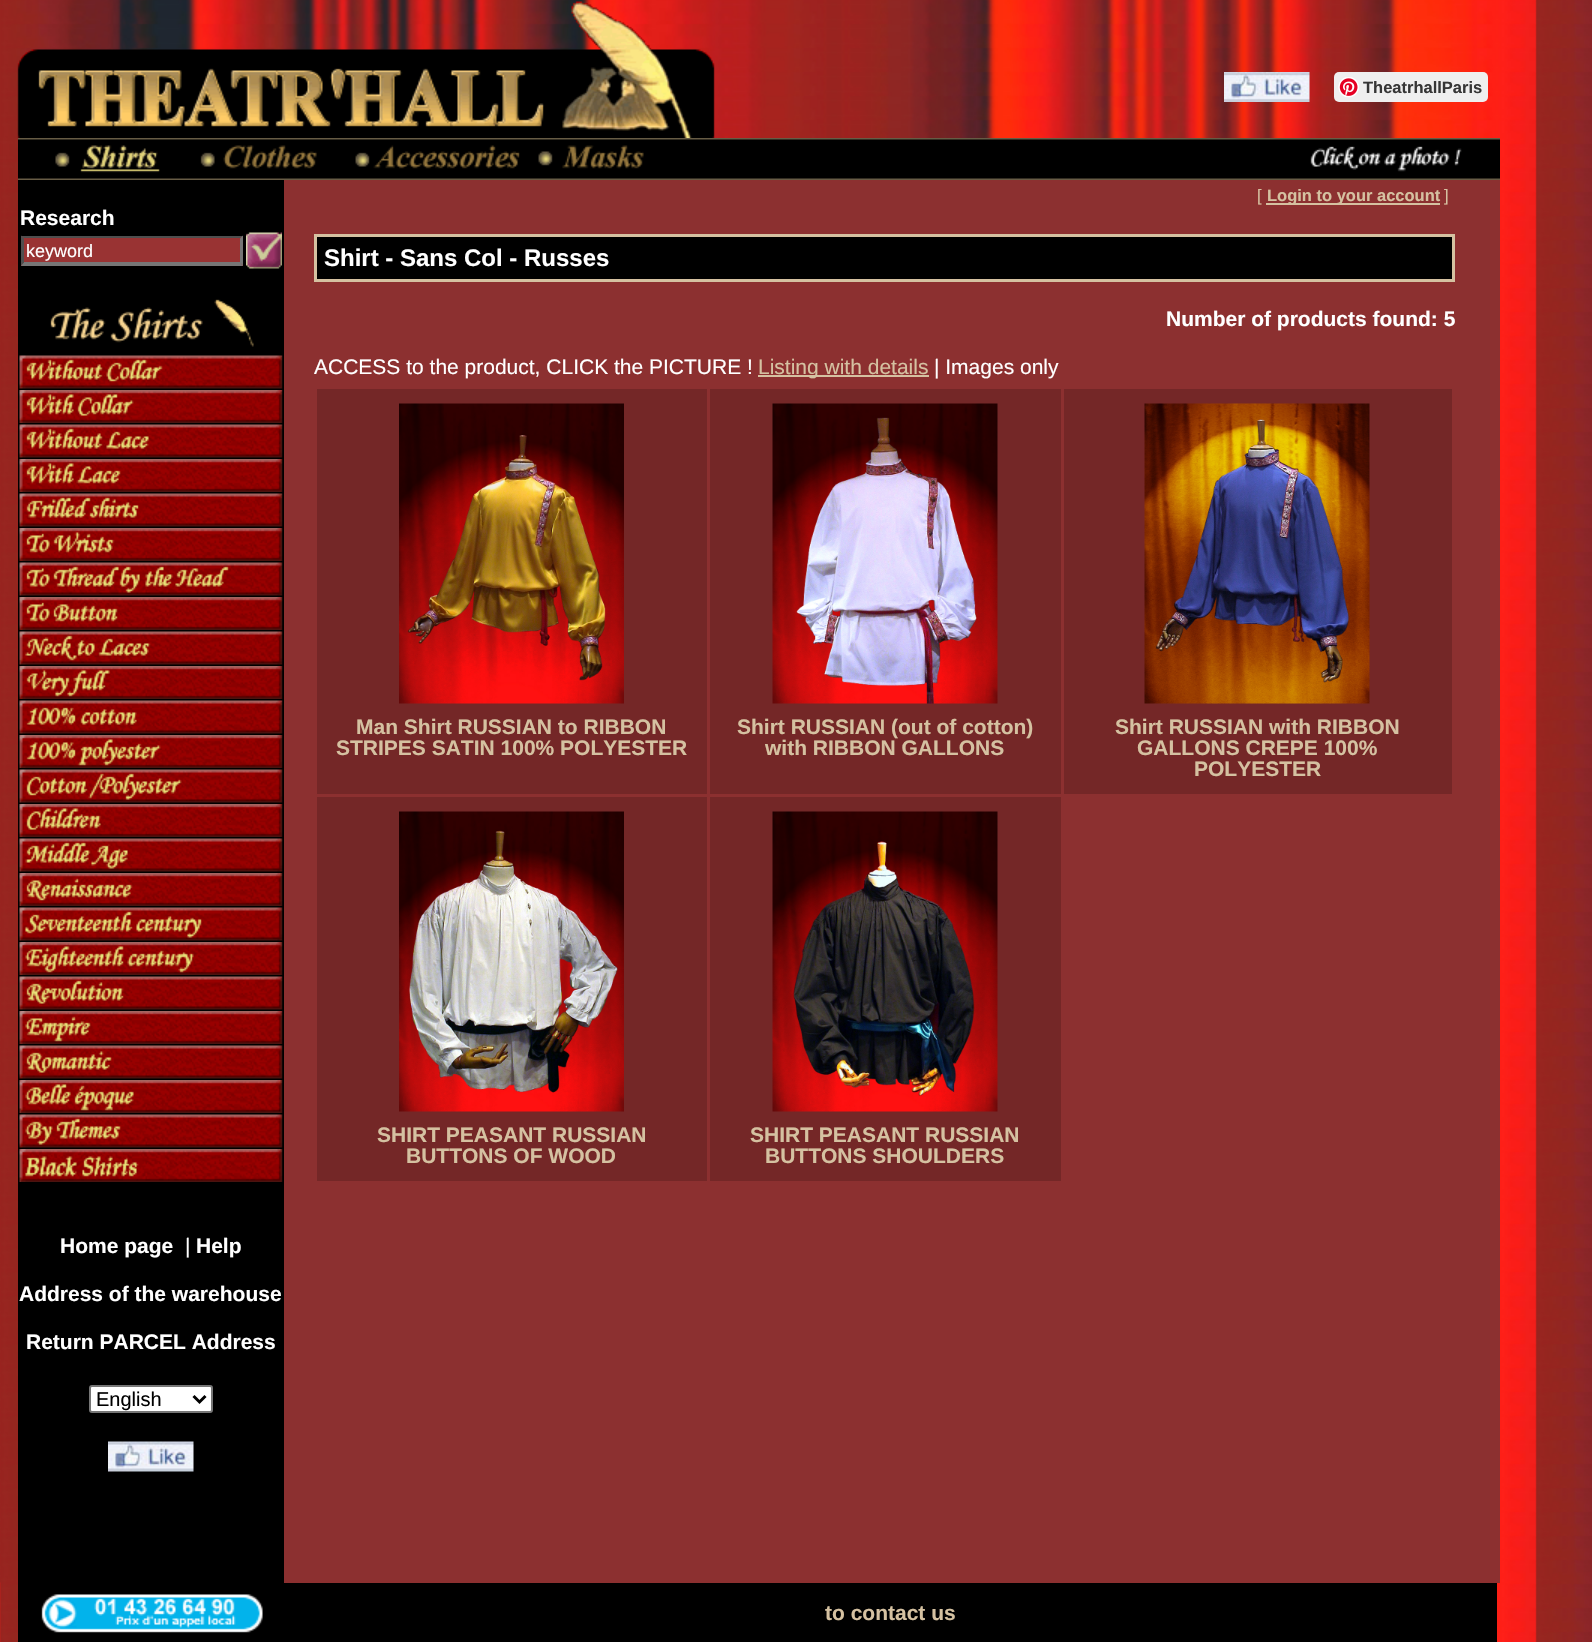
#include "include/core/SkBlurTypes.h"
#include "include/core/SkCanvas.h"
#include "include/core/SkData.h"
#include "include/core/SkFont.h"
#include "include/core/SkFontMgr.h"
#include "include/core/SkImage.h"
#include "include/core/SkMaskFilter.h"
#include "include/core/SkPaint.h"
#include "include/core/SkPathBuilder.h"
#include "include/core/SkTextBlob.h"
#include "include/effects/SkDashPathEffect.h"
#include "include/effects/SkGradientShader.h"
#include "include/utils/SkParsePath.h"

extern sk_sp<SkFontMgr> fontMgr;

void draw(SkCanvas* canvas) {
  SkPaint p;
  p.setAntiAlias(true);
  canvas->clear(SK_ColorWHITE);
  canvas->drawImageRect(SkImages::DeferredFromEncodedData(SkData::MakeFromFileName("images/1.png")), SkRect::MakeLTRB(0, 0, 1592, 1642), SkSamplingOptions());
  p.setColor(SkColorSetRGB(152, 36, 31));
  canvas->drawRect(SkRect::MakeLTRB(0, 0, 1, 138), p);
  canvas->drawImageRect(SkImages::DeferredFromEncodedData(SkData::MakeFromFileName("images/2.png")), SkRect::MakeLTRB(17, 1, 715, 138), SkSamplingOptions());
  canvas->drawImageRect(SkImages::DeferredFromEncodedData(SkData::MakeFromFileName("images/3.png")), SkRect::MakeLTRB(1224, 72, 1310, 102), SkSamplingOptions());
  p.setColor(SkColorSetRGB(239, 239, 239));
  canvas->drawRoundRect(SkRect::MakeLTRB(1334, 72, 1488, 102), 5, 5, p);
  canvas->drawImageRect(SkImages::DeferredFromEncodedData(SkData::MakeFromFileName("images/4.png")), SkRect::MakeLTRB(1338, 77, 1359, 98), SkSamplingOptions());
  canvas->drawImageRect(SkImages::DeferredFromEncodedData(SkData::MakeFromFileName("images/5.png")), SkRect::MakeLTRB(18, 138, 1500, 180), SkSamplingOptions());
  canvas->drawImageRect(SkImages::DeferredFromEncodedData(SkData::MakeFromFileName("images/6.png")), SkRect::MakeLTRB(0, 138, 18, 180), SkSamplingOptions());
  canvas->drawImageRect(SkImages::DeferredFromEncodedData(SkData::MakeFromFileName("images/7.png")), SkRect::MakeLTRB(55, 145, 160, 173), SkSamplingOptions());
  canvas->drawImageRect(SkImages::DeferredFromEncodedData(SkData::MakeFromFileName("images/8.png")), SkRect::MakeLTRB(200, 145, 317, 169), SkSamplingOptions());
  canvas->drawImageRect(SkImages::DeferredFromEncodedData(SkData::MakeFromFileName("images/9.png")), SkRect::MakeLTRB(355, 145, 520, 169), SkSamplingOptions());
  canvas->drawImageRect(SkImages::DeferredFromEncodedData(SkData::MakeFromFileName("images/10.png")), SkRect::MakeLTRB(538, 145, 644, 169), SkSamplingOptions());
  canvas->drawImageRect(SkImages::DeferredFromEncodedData(SkData::MakeFromFileName("images/11.png")), SkRect::MakeLTRB(1310, 146, 1462, 172), SkSamplingOptions());
  canvas->drawImageRect(SkImages::DeferredFromEncodedData(SkData::MakeFromFileName("images/12.png")), SkRect::MakeLTRB(0, 180, 1, 1583), SkSamplingOptions());
  p.setColor(SkColorSetRGB(140, 48, 48));
  canvas->drawRect(SkRect::MakeLTRB(284, 180, 1500, 1583), p);
  p.setColor(SK_ColorBLACK);
  canvas->drawRect(SkRect::MakeLTRB(18, 180, 284, 1642), p);
  p.setColor(SkColorSetRGB(153, 51, 51));
  canvas->drawRect(SkRect::MakeLTRB(21, 236, 243, 266), p);
  p.setColor(SkColorSetRGB(79, 79, 79));
  canvas->drawPath(SkPathBuilder().moveTo(21, 236).lineTo(243, 236).lineTo(240, 238).lineTo(24, 238).close().detach(), p);
  p.setColor(SkColorSetRGB(118, 118, 118));
  canvas->drawPath(SkPathBuilder().moveTo(243, 235.5f).lineTo(243, 265.5f).lineTo(240, 262.5f).lineTo(240, 238.5f).close().detach(), p);
  canvas->drawPath(SkPathBuilder().moveTo(243, 266).lineTo(21, 266).lineTo(24, 262).lineTo(240, 262).close().detach(), p);
  p.setColor(SkColorSetRGB(79, 79, 79));
  canvas->drawPath(SkPathBuilder().moveTo(21, 265.5f).lineTo(21, 235.5f).lineTo(24, 238.5f).lineTo(24, 262.5f).close().detach(), p);
  canvas->drawImageRect(SkImages::DeferredFromEncodedData(SkData::MakeFromFileName("images/13.png")), SkRect::MakeLTRB(246, 232, 282, 269), SkSamplingOptions());
  canvas->drawImageRect(SkImages::DeferredFromEncodedData(SkData::MakeFromFileName("images/14.png")), SkRect::MakeLTRB(50, 299, 254, 347), SkSamplingOptions());
  canvas->drawImageRect(SkImages::DeferredFromEncodedData(SkData::MakeFromFileName("images/15.png")), SkRect::MakeLTRB(19, 355, 283, 389), SkSamplingOptions());
  canvas->drawImageRect(SkImages::DeferredFromEncodedData(SkData::MakeFromFileName("images/16.png")), SkRect::MakeLTRB(19, 390, 283, 423), SkSamplingOptions());
  canvas->drawImageRect(SkImages::DeferredFromEncodedData(SkData::MakeFromFileName("images/17.png")), SkRect::MakeLTRB(19, 424, 283, 458), SkSamplingOptions());
  canvas->drawImageRect(SkImages::DeferredFromEncodedData(SkData::MakeFromFileName("images/18.png")), SkRect::MakeLTRB(19, 459, 283, 492), SkSamplingOptions());
  canvas->drawImageRect(SkImages::DeferredFromEncodedData(SkData::MakeFromFileName("images/19.png")), SkRect::MakeLTRB(19, 493, 283, 527), SkSamplingOptions());
  canvas->drawImageRect(SkImages::DeferredFromEncodedData(SkData::MakeFromFileName("images/20.png")), SkRect::MakeLTRB(19, 528, 283, 561), SkSamplingOptions());
  canvas->drawImageRect(SkImages::DeferredFromEncodedData(SkData::MakeFromFileName("images/21.png")), SkRect::MakeLTRB(19, 562, 283, 596), SkSamplingOptions());
  canvas->drawImageRect(SkImages::DeferredFromEncodedData(SkData::MakeFromFileName("images/22.png")), SkRect::MakeLTRB(19, 597, 283, 630), SkSamplingOptions());
  canvas->drawImageRect(SkImages::DeferredFromEncodedData(SkData::MakeFromFileName("images/23.png")), SkRect::MakeLTRB(19, 631, 283, 665), SkSamplingOptions());
  canvas->drawImageRect(SkImages::DeferredFromEncodedData(SkData::MakeFromFileName("images/24.png")), SkRect::MakeLTRB(19, 666, 283, 699), SkSamplingOptions());
  canvas->drawImageRect(SkImages::DeferredFromEncodedData(SkData::MakeFromFileName("images/25.png")), SkRect::MakeLTRB(19, 700, 283, 734), SkSamplingOptions());
  canvas->drawImageRect(SkImages::DeferredFromEncodedData(SkData::MakeFromFileName("images/26.png")), SkRect::MakeLTRB(19, 735, 283, 768), SkSamplingOptions());
  canvas->drawImageRect(SkImages::DeferredFromEncodedData(SkData::MakeFromFileName("images/27.png")), SkRect::MakeLTRB(19, 769, 283, 803), SkSamplingOptions());
  canvas->drawImageRect(SkImages::DeferredFromEncodedData(SkData::MakeFromFileName("images/28.png")), SkRect::MakeLTRB(19, 804, 283, 837), SkSamplingOptions());
  canvas->drawImageRect(SkImages::DeferredFromEncodedData(SkData::MakeFromFileName("images/29.png")), SkRect::MakeLTRB(19, 838, 283, 872), SkSamplingOptions());
  canvas->drawImageRect(SkImages::DeferredFromEncodedData(SkData::MakeFromFileName("images/30.png")), SkRect::MakeLTRB(19, 873, 283, 906), SkSamplingOptions());
  canvas->drawImageRect(SkImages::DeferredFromEncodedData(SkData::MakeFromFileName("images/31.png")), SkRect::MakeLTRB(19, 907, 283, 941), SkSamplingOptions());
  canvas->drawImageRect(SkImages::DeferredFromEncodedData(SkData::MakeFromFileName("images/32.png")), SkRect::MakeLTRB(19, 942, 283, 975), SkSamplingOptions());
  canvas->drawImageRect(SkImages::DeferredFromEncodedData(SkData::MakeFromFileName("images/33.png")), SkRect::MakeLTRB(19, 976, 283, 1010), SkSamplingOptions());
  canvas->drawImageRect(SkImages::DeferredFromEncodedData(SkData::MakeFromFileName("images/34.png")), SkRect::MakeLTRB(19, 1011, 283, 1044), SkSamplingOptions());
  canvas->drawImageRect(SkImages::DeferredFromEncodedData(SkData::MakeFromFileName("images/35.png")), SkRect::MakeLTRB(19, 1045, 283, 1079), SkSamplingOptions());
  canvas->drawImageRect(SkImages::DeferredFromEncodedData(SkData::MakeFromFileName("images/36.png")), SkRect::MakeLTRB(19, 1080, 283, 1113), SkSamplingOptions());
  canvas->drawImageRect(SkImages::DeferredFromEncodedData(SkData::MakeFromFileName("images/37.png")), SkRect::MakeLTRB(19, 1114, 283, 1148), SkSamplingOptions());
  canvas->drawImageRect(SkImages::DeferredFromEncodedData(SkData::MakeFromFileName("images/38.png")), SkRect::MakeLTRB(19, 1149, 283, 1182), SkSamplingOptions());
  p.setColor(SK_ColorWHITE);
  canvas->drawRoundRect(SkRect::MakeLTRB(90, 1386, 212, 1412), 2, 2, p);
  p.setStyle(SkPaint::kStroke_Style);
  p.setStrokeWidth(2);
  p.setColor(SkColorSetRGB(118, 118, 118));
  canvas->drawRoundRect(SkRect::MakeLTRB(90, 1386, 212, 1412), 2, 2, p);
  p.setStrokeWidth(3);
  p.setColor(SK_ColorBLACK);
  canvas->drawPath(SkPathBuilder().moveTo(193.5f, 1396).lineTo(199.5f, 1402).lineTo(205.5f, 1396).detach(), p);
  canvas->drawImageRect(SkImages::DeferredFromEncodedData(SkData::MakeFromFileName("images/39.png")), SkRect::MakeLTRB(108, 1441, 194, 1472), SkSamplingOptions());
  p.setStyle(SkPaint::kFill_Style);
  p.setColor(SkColorSetRGB(213, 193, 161));
  canvas->drawRect(SkRect::MakeLTRB(1266, 203, 1440, 205), p);
  canvas->drawRect(SkRect::MakeLTRB(314, 234, 1455, 282), p);
  p.setColor(SK_ColorBLACK);
  canvas->drawRect(SkRect::MakeLTRB(317, 237, 1452, 279), p);
  p.setColor(SkColorSetRGB(213, 193, 161));
  canvas->drawRect(SkRect::MakeLTRB(758, 375, 929, 377), p);
  p.setColor(SkColorSetRGB(116, 39, 39));
  canvas->drawRect(SkRect::MakeLTRB(317, 389, 707, 794), p);
  canvas->drawImageRect(SkImages::DeferredFromEncodedData(SkData::MakeFromFileName("images/40.png")), SkRect::MakeLTRB(399, 403, 624, 704), SkSamplingOptions());
  canvas->drawRect(SkRect::MakeLTRB(710, 389, 1061, 794), p);
  canvas->drawImageRect(SkImages::DeferredFromEncodedData(SkData::MakeFromFileName("images/41.png")), SkRect::MakeLTRB(772, 403, 998, 704), SkSamplingOptions());
  canvas->drawRect(SkRect::MakeLTRB(1064, 389, 1452, 794), p);
  canvas->drawImageRect(SkImages::DeferredFromEncodedData(SkData::MakeFromFileName("images/42.png")), SkRect::MakeLTRB(1144, 403, 1370, 704), SkSamplingOptions());
  canvas->drawRect(SkRect::MakeLTRB(317, 797, 707, 1181), p);
  canvas->drawImageRect(SkImages::DeferredFromEncodedData(SkData::MakeFromFileName("images/43.png")), SkRect::MakeLTRB(399, 811, 624, 1112), SkSamplingOptions());
  canvas->drawRect(SkRect::MakeLTRB(710, 797, 1061, 1181), p);
  canvas->drawImageRect(SkImages::DeferredFromEncodedData(SkData::MakeFromFileName("images/44.png")), SkRect::MakeLTRB(772, 811, 998, 1112), SkSamplingOptions());
  canvas->drawImageRect(SkImages::DeferredFromEncodedData(SkData::MakeFromFileName("images/45.png")), SkRect::MakeLTRB(41, 1594, 263, 1633), SkSamplingOptions());
  p.setColor(SK_ColorBLACK);
  canvas->drawRect(SkRect::MakeLTRB(284, 1583, 1497, 1642), p);
  SkFont font1(fontMgr->matchFamilyStyle("Liberation Sans", SkFontStyle::Bold()), 16.5f);
  font1.setSubpixel(true);
  p.setColor(SkColorSetRGB(54, 54, 54));
  canvas->drawString("TheatrhallParis", 1363, 93, font1, p);
  SkFont font2(fontMgr->matchFamilyStyle("Liberation Sans", SkFontStyle::Bold()), 21);
  font2.setSubpixel(true);
  p.setColor(SK_ColorWHITE);
  canvas->drawString("Research", 20, 225, font2, p);
  SkFont font3(fontMgr->matchFamilyStyle("Liberation Sans", SkFontStyle::Normal()), 18);
  font3.setSubpixel(true);
  canvas->drawString("keyword", 26, 257, font3, p);
  canvas->drawString("Home page", 60, 1253, font2, p);
  SkFont font4(fontMgr->matchFamilyStyle("Liberation Sans", SkFontStyle::Normal()), 21);
  font4.setSubpixel(true);
  canvas->drawString("|", 185, 1253, font4, p);
  canvas->drawString("Help", 196, 1253, font2, p);
  canvas->drawString("Address of the warehouse", 19, 1301, font2, p);
  canvas->drawString("Return PARCEL Address", 26, 1349, font2, p);
  SkFont font5(fontMgr->matchFamilyStyle("Liberation Sans", SkFontStyle::Normal()), 20);
  font5.setSubpixel(true);
  p.setColor(SK_ColorBLACK);
  canvas->drawString("English", 96, 1406, font5, p);
  SkFont font6(fontMgr->matchFamilyStyle("Liberation Sans", SkFontStyle::Normal()), 16.5f);
  font6.setSubpixel(true);
  p.setColor(SkColorSetRGB(213, 193, 161));
  canvas->drawString("[", 1257, 201, font6, p);
  canvas->drawString("Login to your account", 1267, 201, font1, p);
  canvas->drawString("]", 1444, 201, font6, p);
  SkFont font7(fontMgr->matchFamilyStyle("Liberation Sans", SkFontStyle::Bold()), 24);
  font7.setSubpixel(true);
  p.setColor(SK_ColorWHITE);
  canvas->drawString("Shirt - Sans Col - Russes", 324, 266, font7, p);
  canvas->drawString("Number of products found: 5", 1166, 326, font2, p);
  canvas->drawString("ACCESS to the product, CLICK the PICTURE !", 314, 374, font4, p);
  p.setColor(SkColorSetRGB(213, 193, 161));
  canvas->drawString("Listing with details", 758, 374, font4, p);
  p.setColor(SK_ColorWHITE);
  canvas->drawString("| Images only", 934, 374, font4, p);
  p.setColor(SkColorSetRGB(213, 193, 161));
  canvas->drawString("Man Shirt RUSSIAN to RIBBON", 356, 734, font2, p);
  canvas->drawString("STRIPES SATIN 100% POLYESTER", 336, 755, font2, p);
  canvas->drawString("Shirt RUSSIAN (out of cotton)", 737, 734, font2, p);
  canvas->drawString("with RIBBON GALLONS", 765, 755, font2, p);
  canvas->drawString("Shirt RUSSIAN with RIBBON", 1115, 734, font2, p);
  canvas->drawString("GALLONS CREPE 100%", 1137, 755, font2, p);
  canvas->drawString("POLYESTER", 1194, 776, font2, p);
  canvas->drawString("SHIRT PEASANT RUSSIAN", 377, 1142, font2, p);
  canvas->drawString("BUTTONS OF WOOD", 406, 1163, font2, p);
  canvas->drawString("SHIRT PEASANT RUSSIAN", 750, 1142, font2, p);
  canvas->drawString("BUTTONS SHOULDERS", 765, 1163, font2, p);
  canvas->drawString("to contact us", 825, 1620, font2, p);
}
